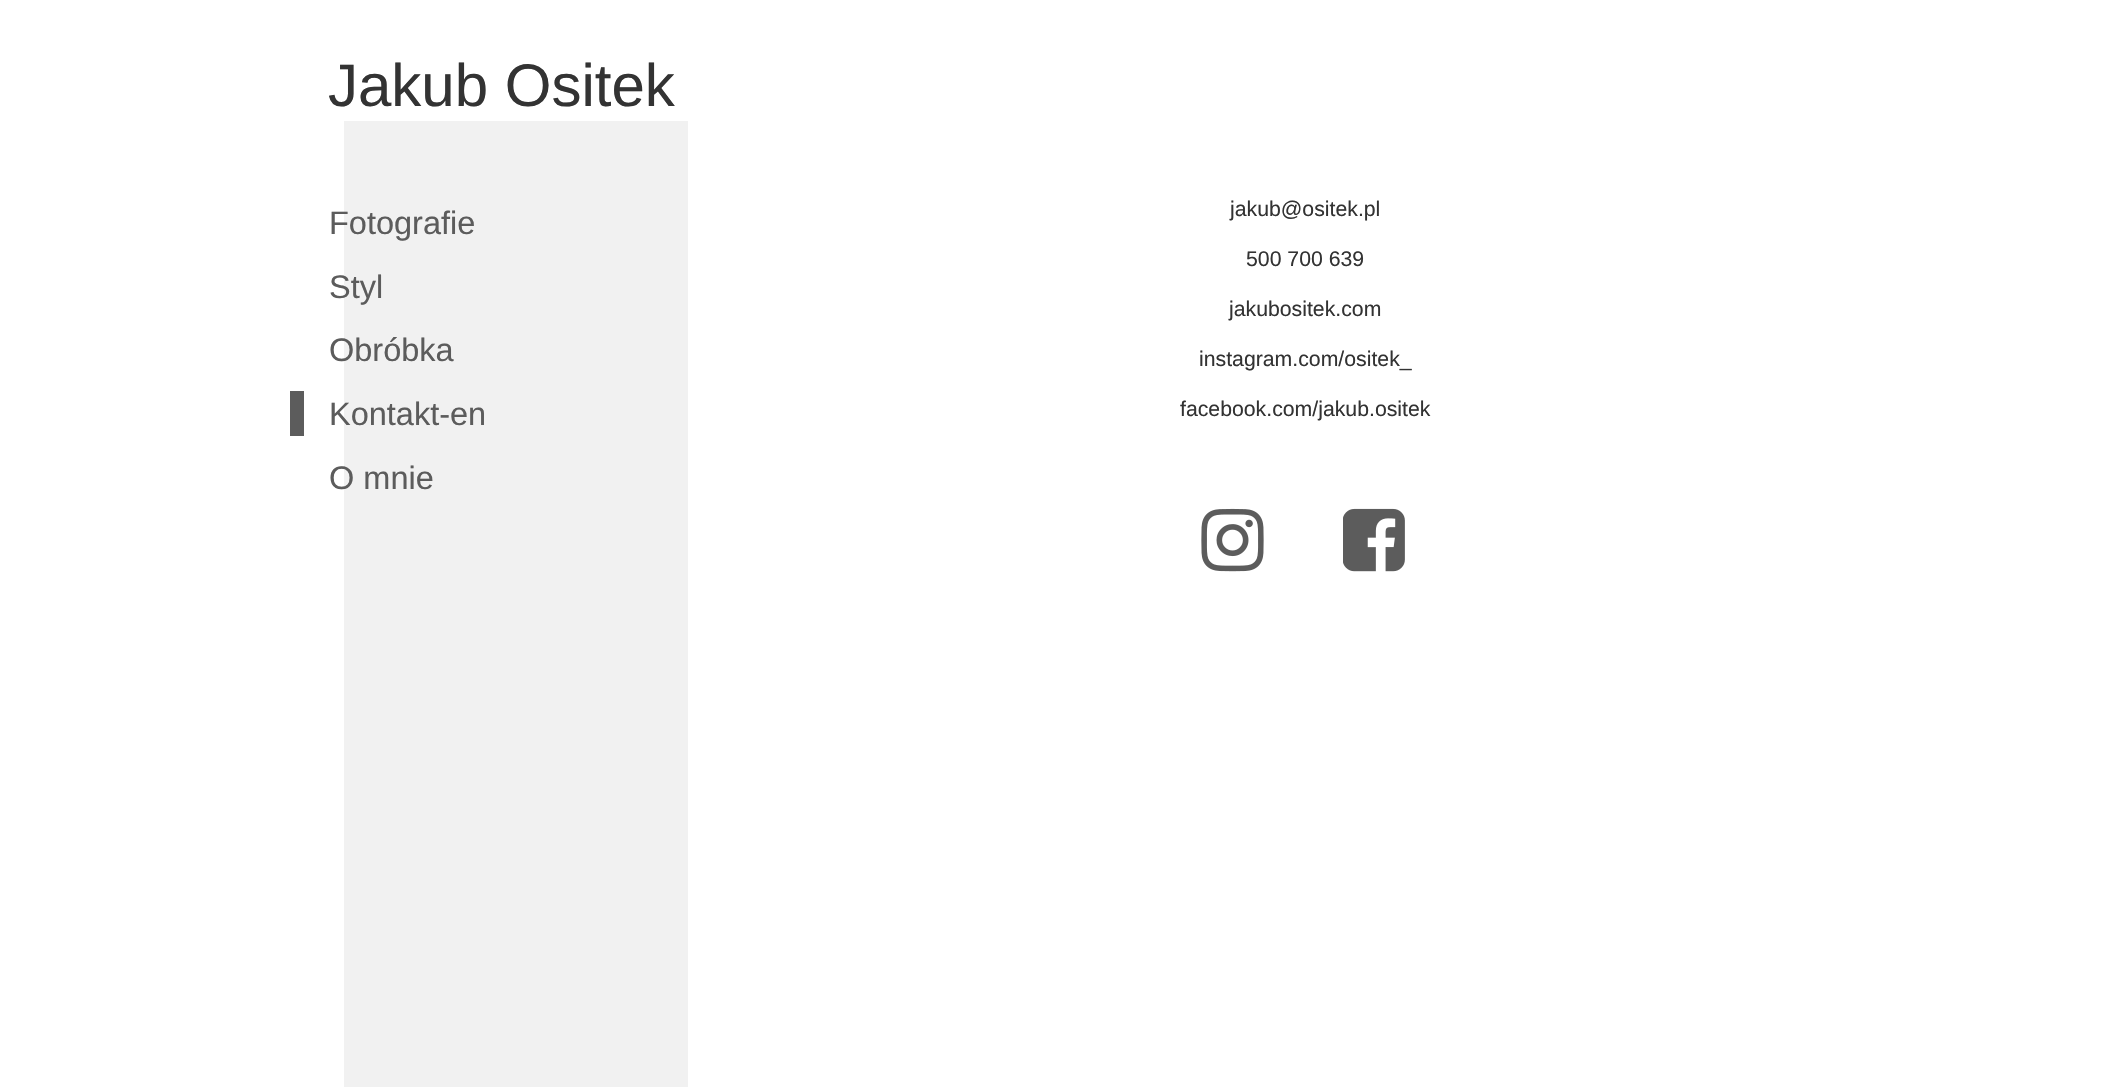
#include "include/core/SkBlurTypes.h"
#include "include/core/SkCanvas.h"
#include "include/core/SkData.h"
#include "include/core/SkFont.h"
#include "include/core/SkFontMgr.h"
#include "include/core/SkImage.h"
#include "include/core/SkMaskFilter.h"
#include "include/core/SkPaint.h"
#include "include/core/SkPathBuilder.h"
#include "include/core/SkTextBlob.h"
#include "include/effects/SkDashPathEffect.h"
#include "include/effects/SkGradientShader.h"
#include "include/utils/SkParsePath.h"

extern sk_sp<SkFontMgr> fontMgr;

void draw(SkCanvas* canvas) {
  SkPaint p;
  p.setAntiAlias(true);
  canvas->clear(SK_ColorWHITE);
  p.setColor(SkColorSetRGB(241, 241, 241));
  canvas->drawRect(SkRect::MakeLTRB(344, 121, 688, 1087), p);
  p.setColor(SkColorSetRGB(92, 92, 92));
  canvas->drawRect(SkRect::MakeLTRB(290, 391, 304, 436), p);
  canvas->drawImageRect(SkImages::DeferredFromEncodedData(SkData::MakeFromFileName("images/1.png")), SkRect::MakeLTRB(1201, 508, 1264, 572), SkSamplingOptions());
  canvas->drawImageRect(SkImages::DeferredFromEncodedData(SkData::MakeFromFileName("images/2.png")), SkRect::MakeLTRB(1343, 508, 1405, 572), SkSamplingOptions());
  SkFont font1(fontMgr->matchFamilyStyle("Liberation Sans", SkFontStyle::Normal()), 60);
  font1.setSubpixel(true);
  p.setColor(SkColorSetRGB(51, 51, 51));
  canvas->drawString("Jakub Ositek", 328, 106, font1, p);
  SkFont font2(fontMgr->matchFamilyStyle("Liberation Sans", SkFontStyle::Normal()), 21.25f);
  font2.setSubpixel(true);
  canvas->drawString("jakub@ositek.pl", 1230, 216, font2, p);
  canvas->drawString("500 700 639", 1246, 266, font2, p);
  canvas->drawString("jakubositek.com", 1229, 316, font2, p);
  canvas->drawString("instagram.com/ositek_", 1199, 366, font2, p);
  canvas->drawString("facebook.com/jakub.ositek", 1180, 416, font2, p);
  SkFont font3(fontMgr->matchFamilyStyle("Liberation Sans", SkFontStyle::Normal()), 32.5f);
  font3.setSubpixel(true);
  p.setColor(SkColorSetRGB(92, 92, 92));
  canvas->drawString("Fotografie", 329, 234, font3, p);
  canvas->drawString("Styl", 329, 298, font3, p);
  canvas->drawString("Obróbka", 329, 361, font3, p);
  canvas->drawString("Kontakt-en", 329, 425, font3, p);
  canvas->drawString("O mnie", 329, 489, font3, p);
}
